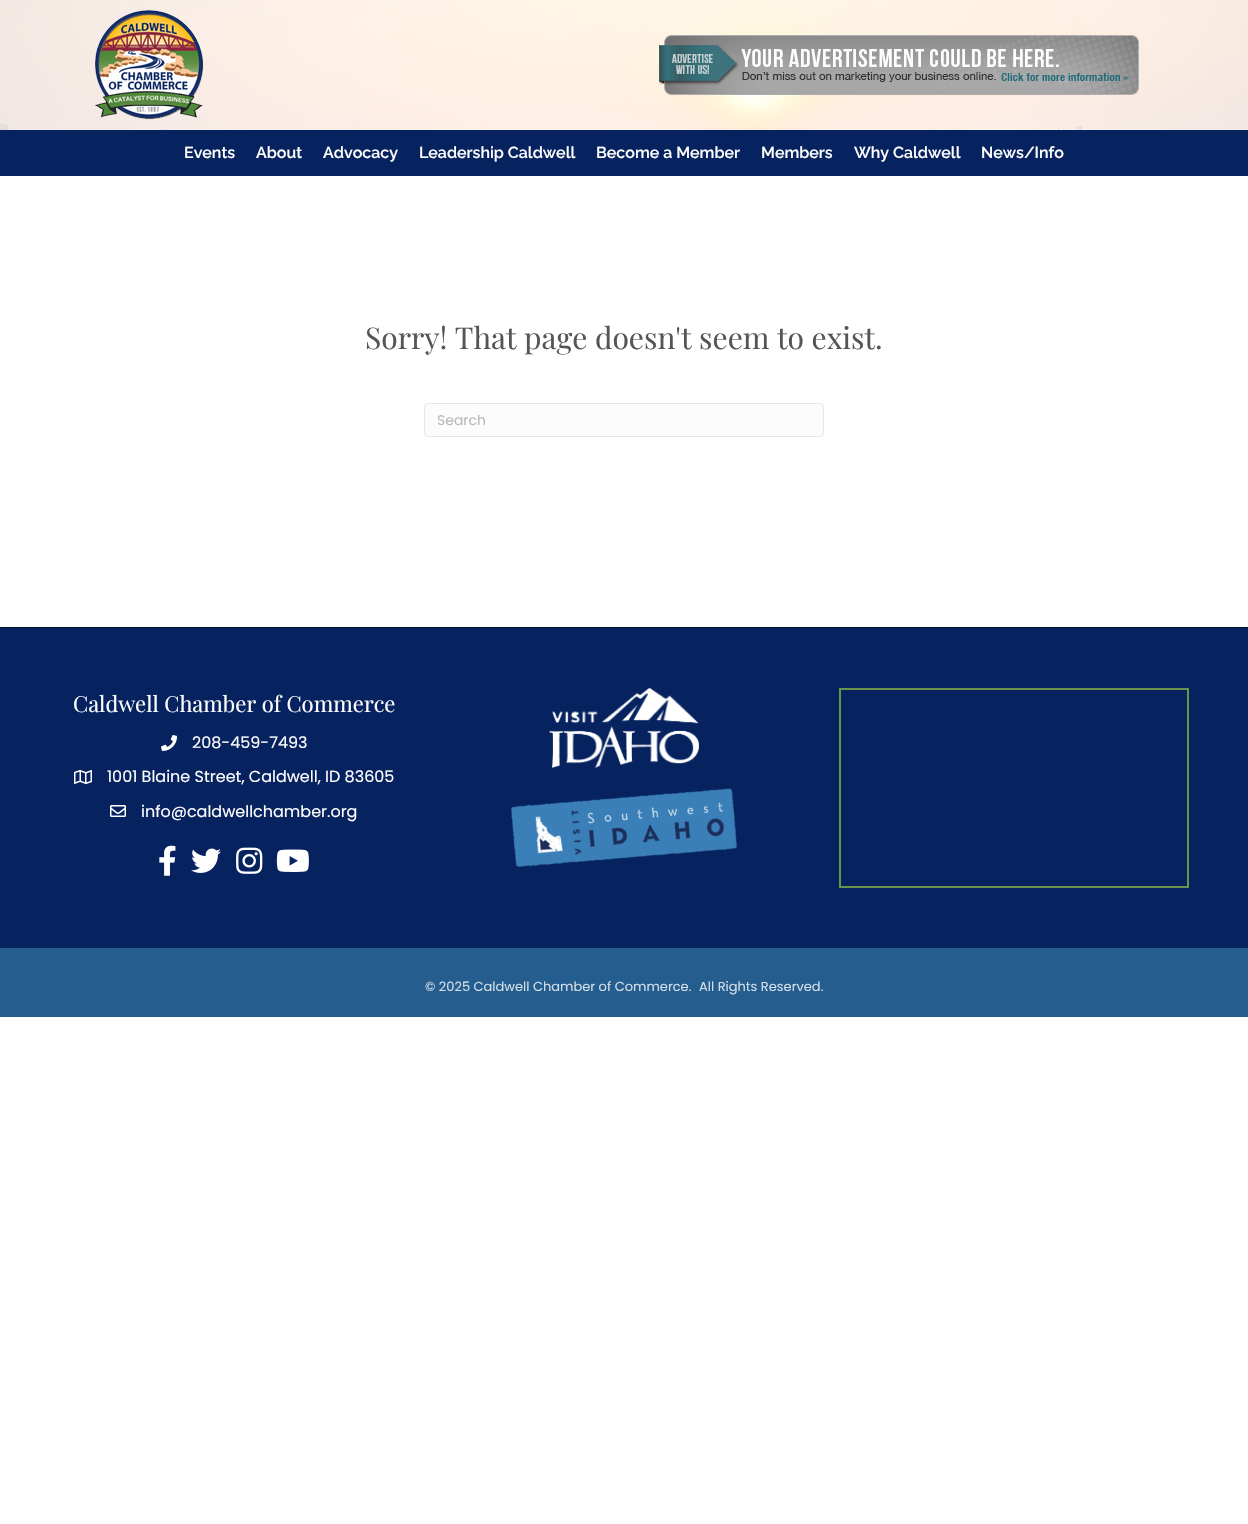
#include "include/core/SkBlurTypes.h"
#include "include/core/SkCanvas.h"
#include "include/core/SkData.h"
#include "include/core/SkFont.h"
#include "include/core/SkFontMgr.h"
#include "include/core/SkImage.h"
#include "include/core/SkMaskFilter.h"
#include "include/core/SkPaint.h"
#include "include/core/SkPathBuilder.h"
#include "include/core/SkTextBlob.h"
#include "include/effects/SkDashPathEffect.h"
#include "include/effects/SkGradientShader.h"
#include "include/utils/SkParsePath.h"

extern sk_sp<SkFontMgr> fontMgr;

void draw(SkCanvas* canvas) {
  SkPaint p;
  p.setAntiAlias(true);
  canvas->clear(SK_ColorWHITE);
  canvas->drawImageRect(SkImages::DeferredFromEncodedData(SkData::MakeFromFileName("images/1.png")), SkRect::MakeLTRB(0, 0, 1248, 130), SkSamplingOptions());
  canvas->drawImageRect(SkImages::DeferredFromEncodedData(SkData::MakeFromFileName("images/2.png")), SkRect::MakeLTRB(95, 10, 204, 120), SkSamplingOptions());
  canvas->drawImageRect(SkImages::DeferredFromEncodedData(SkData::MakeFromFileName("images/3.png")), SkRect::MakeLTRB(659, 35, 1139, 95), SkSamplingOptions());
  p.setColor(SkColorSetRGB(7, 35, 95));
  canvas->drawRect(SkRect::MakeLTRB(0, 130, 1248, 176), p);
  p.setColor(SkColorSetRGB(252, 252, 252));
  canvas->drawRoundRect(SkRect::MakeLTRB(424.5f, 403.5f, 823.5f, 436.5f), 3.5f, 3.5f, p);
  p.setStyle(SkPaint::kStroke_Style);
  p.setStrokeWidth(1);
  p.setColor(SkColorSetRGB(230, 230, 230));
  canvas->drawRoundRect(SkRect::MakeLTRB(424.5f, 403.5f, 823.5f, 436.5f), 3.5f, 3.5f, p);
  p.setStyle(SkPaint::kFill_Style);
  p.setColor(SkColorSetRGB(7, 35, 95));
  canvas->drawRect(SkRect::MakeLTRB(0, 628, 1248, 948), p);
  p.setColor(SkColorSetRGB(5, 22, 34));
  canvas->drawRect(SkRect::MakeLTRB(0, 627, 1248, 628), p);
  canvas->drawImageRect(SkImages::DeferredFromEncodedData(SkData::MakeFromFileName("images/4.png")), SkRect::MakeLTRB(161, 735, 177, 751), SkSamplingOptions());
  canvas->drawImageRect(SkImages::DeferredFromEncodedData(SkData::MakeFromFileName("images/5.png")), SkRect::MakeLTRB(74, 770, 92, 784), SkSamplingOptions());
  canvas->drawImageRect(SkImages::DeferredFromEncodedData(SkData::MakeFromFileName("images/6.png")), SkRect::MakeLTRB(110, 805, 126, 817), SkSamplingOptions());
  canvas->drawImageRect(SkImages::DeferredFromEncodedData(SkData::MakeFromFileName("images/7.png")), SkRect::MakeLTRB(159, 845, 176, 876), SkSamplingOptions());
  canvas->drawImageRect(SkImages::DeferredFromEncodedData(SkData::MakeFromFileName("images/8.png")), SkRect::MakeLTRB(191, 848, 221, 873), SkSamplingOptions());
  canvas->drawImageRect(SkImages::DeferredFromEncodedData(SkData::MakeFromFileName("images/9.png")), SkRect::MakeLTRB(236, 847, 263, 874), SkSamplingOptions());
  canvas->drawImageRect(SkImages::DeferredFromEncodedData(SkData::MakeFromFileName("images/10.png")), SkRect::MakeLTRB(276, 849, 309, 872), SkSamplingOptions());
  canvas->drawImageRect(SkImages::DeferredFromEncodedData(SkData::MakeFromFileName("images/11.png")), SkRect::MakeLTRB(549, 688, 699, 768), SkSamplingOptions());
  canvas->drawImageRect(SkImages::DeferredFromEncodedData(SkData::MakeFromFileName("images/12.png")), SkRect::MakeLTRB(511, 788, 737, 867), SkSamplingOptions());
  p.setStyle(SkPaint::kStroke_Style);
  p.setStrokeWidth(2);
  p.setColor(SkColorSetRGB(106, 146, 73));
  canvas->drawRect(SkRect::MakeLTRB(840, 689, 1188, 887), p);
  p.setStyle(SkPaint::kFill_Style);
  p.setColor(SkColorSetRGB(37, 93, 142));
  canvas->drawRect(SkRect::MakeLTRB(0, 948, 1248, 1017), p);
  SkFont font1(fontMgr->matchFamilyStyle("Raleway", SkFontStyle(100, SkFontStyle::kNormal_Width, SkFontStyle::kUpright_Slant)), 16);
  font1.setSubpixel(true);
  p.setColor(SK_ColorWHITE);
  canvas->drawString("Events", 184, 158, font1, p);
  canvas->drawString("About", 256, 158, font1, p);
  canvas->drawString("Advocacy", 323, 158, font1, p);
  canvas->drawString("Leadership Caldwell", 419, 158, font1, p);
  canvas->drawString("Become a Member", 596, 158, font1, p);
  canvas->drawString("Members", 761, 158, font1, p);
  canvas->drawString("Why Caldwell", 854, 158, font1, p);
  canvas->drawString("News/Info", 981, 158, font1, p);
  SkFont font2(fontMgr->matchFamilyStyle("Playfair Display", SkFontStyle::Normal()), 30);
  font2.setSubpixel(true);
  p.setColor(SkColorSetRGB(85, 85, 85));
  canvas->drawString("Sorry! That page doesn't seem to exist.", 365, 349, font2, p);
  SkFont font3(fontMgr->matchFamilyStyle("Poppins", SkFontStyle::Normal()), 14);
  font3.setSubpixel(true);
  p.setColor(SkColorSetRGB(185, 185, 185));
  canvas->drawString("Search", 437, 425, font3, p);
  SkFont font4(fontMgr->matchFamilyStyle("Playfair Display", SkFontStyle::Normal()), 22);
  font4.setSubpixel(true);
  p.setColor(SK_ColorWHITE);
  canvas->drawString("Caldwell Chamber of Commerce", 73, 712, font4, p);
  SkFont font5(fontMgr->matchFamilyStyle("Poppins", SkFontStyle::Normal()), 16);
  font5.setSubpixel(true);
  canvas->drawString("208-459-7493", 192, 748, font5, p);
  canvas->drawString("1001 Blaine Street, Caldwell, ID 83605", 107, 782, font5, p);
  canvas->drawString("info@caldwellchamber.org", 141, 817, font5, p);
  SkFont font6(fontMgr->matchFamilyStyle("Poppins", SkFontStyle::Normal()), 13);
  font6.setSubpixel(true);
  p.setColor(SkColorSetRGB(211, 223, 232));
  canvas->drawString("© 2025 Caldwell Chamber of Commerce.", 425, 991, font6, p);
  canvas->drawString("All Rights Reserved.", 699, 991, font6, p);
}
